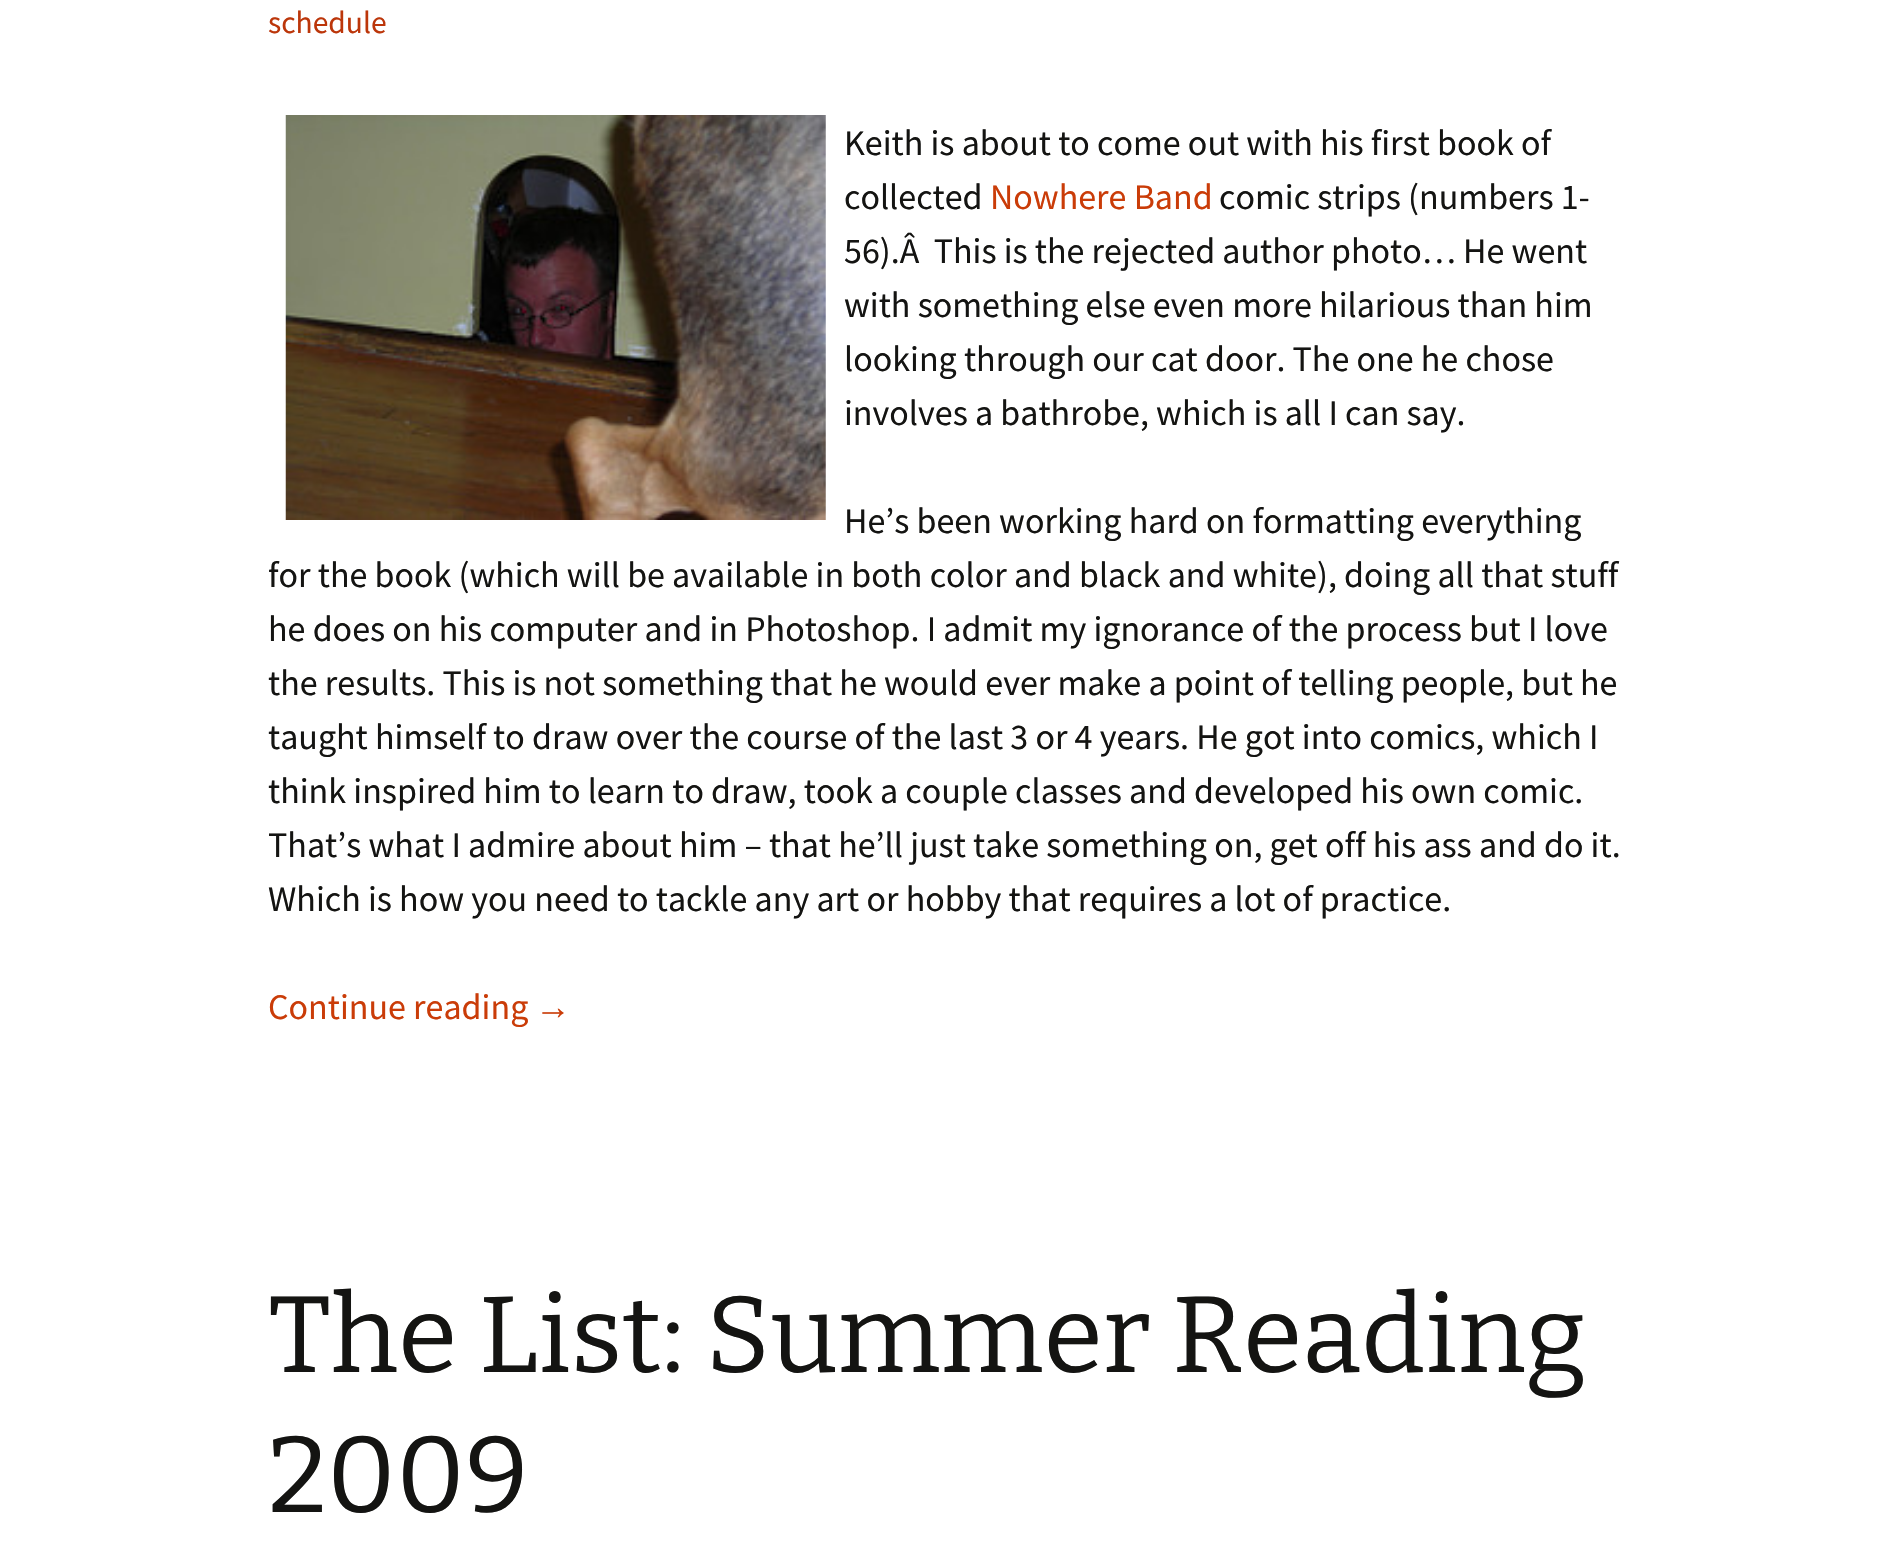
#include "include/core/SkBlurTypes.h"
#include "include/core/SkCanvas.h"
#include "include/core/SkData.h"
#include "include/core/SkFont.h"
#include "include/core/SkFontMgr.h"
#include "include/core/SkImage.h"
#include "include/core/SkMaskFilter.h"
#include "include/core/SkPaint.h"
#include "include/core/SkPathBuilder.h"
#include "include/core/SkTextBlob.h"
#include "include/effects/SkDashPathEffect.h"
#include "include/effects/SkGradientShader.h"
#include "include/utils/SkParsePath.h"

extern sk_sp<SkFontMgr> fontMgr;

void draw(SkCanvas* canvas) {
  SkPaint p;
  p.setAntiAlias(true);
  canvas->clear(SK_ColorWHITE);
  canvas->drawImageRect(SkImages::DeferredFromEncodedData(SkData::MakeFromFileName("images/1.png")), SkRect::MakeLTRB(285, 115, 826, 520), SkSamplingOptions());
  SkFont font1(fontMgr->matchFamilyStyle("Source Sans Pro", SkFontStyle::Normal()), 31.5f);
  font1.setSubpixel(true);
  p.setColor(SkColorSetRGB(188, 54, 10));
  canvas->drawString("schedule", 268, 33, font1, p);
  SkFont font2(fontMgr->matchFamilyStyle("Source Sans Pro", SkFontStyle::Normal()), 36);
  font2.setSubpixel(true);
  p.setColor(SkColorSetRGB(20, 20, 18));
  canvas->drawString("Keith is about to come out with his first book of", 844, 155, font2, p);
  canvas->drawString("collected", 844, 209, font2, p);
  p.setColor(SkColorSetRGB(202, 60, 8));
  canvas->drawString("Nowhere Band", 990, 209, font2, p);
  p.setColor(SkColorSetRGB(20, 20, 18));
  canvas->drawString("comic strips (numbers 1-", 1219, 209, font2, p);
  canvas->drawString("56).Â  This is the rejected author photo… He went", 844, 263, font2, p);
  canvas->drawString("with something else even more hilarious than him", 844, 317, font2, p);
  canvas->drawString("looking through our cat door. The one he chose", 844, 371, font2, p);
  canvas->drawString("involves a bathrobe, which is all I can say.", 844, 425, font2, p);
  canvas->drawString("He’s been working hard on formatting everything", 844, 533, font2, p);
  canvas->drawString("for the book (which will be available in both color and black and white), doing all that stuff", 268, 587, font2, p);
  canvas->drawString("he does on his computer and in Photoshop. I admit my ignorance of the process but I love", 268, 641, font2, p);
  canvas->drawString("the results. This is not something that he would ever make a point of telling people, but he", 268, 695, font2, p);
  canvas->drawString("taught himself to draw over the course of the last 3 or 4 years. He got into comics, which I", 268, 749, font2, p);
  canvas->drawString("think inspired him to learn to draw, took a couple classes and developed his own comic.", 268, 803, font2, p);
  canvas->drawString("That’s what I admire about him – that he’ll just take something on, get off his ass and do it.", 268, 857, font2, p);
  canvas->drawString("Which is how you need to tackle any art or hobby that requires a lot of practice.", 268, 911, font2, p);
  p.setColor(SkColorSetRGB(202, 60, 8));
  canvas->drawString("Continue reading", 268, 1019, font2, p);
  SkFont font3(fontMgr->matchFamilyStyle("Liberation Sans", SkFontStyle::Normal()), 36);
  font3.setSubpixel(true);
  canvas->drawString("→", 535, 1019, font3, p);
  SkFont font4(fontMgr->matchFamilyStyle("Bitter", SkFontStyle(100, SkFontStyle::kNormal_Width, SkFontStyle::kUpright_Slant)), 108);
  font4.setSubpixel(true);
  p.setColor(SkColorSetRGB(20, 20, 18));
  canvas->drawString("The List: Summer Reading", 268, 1372, font4, p);
  canvas->drawString("2009", 268, 1512, font4, p);
}
